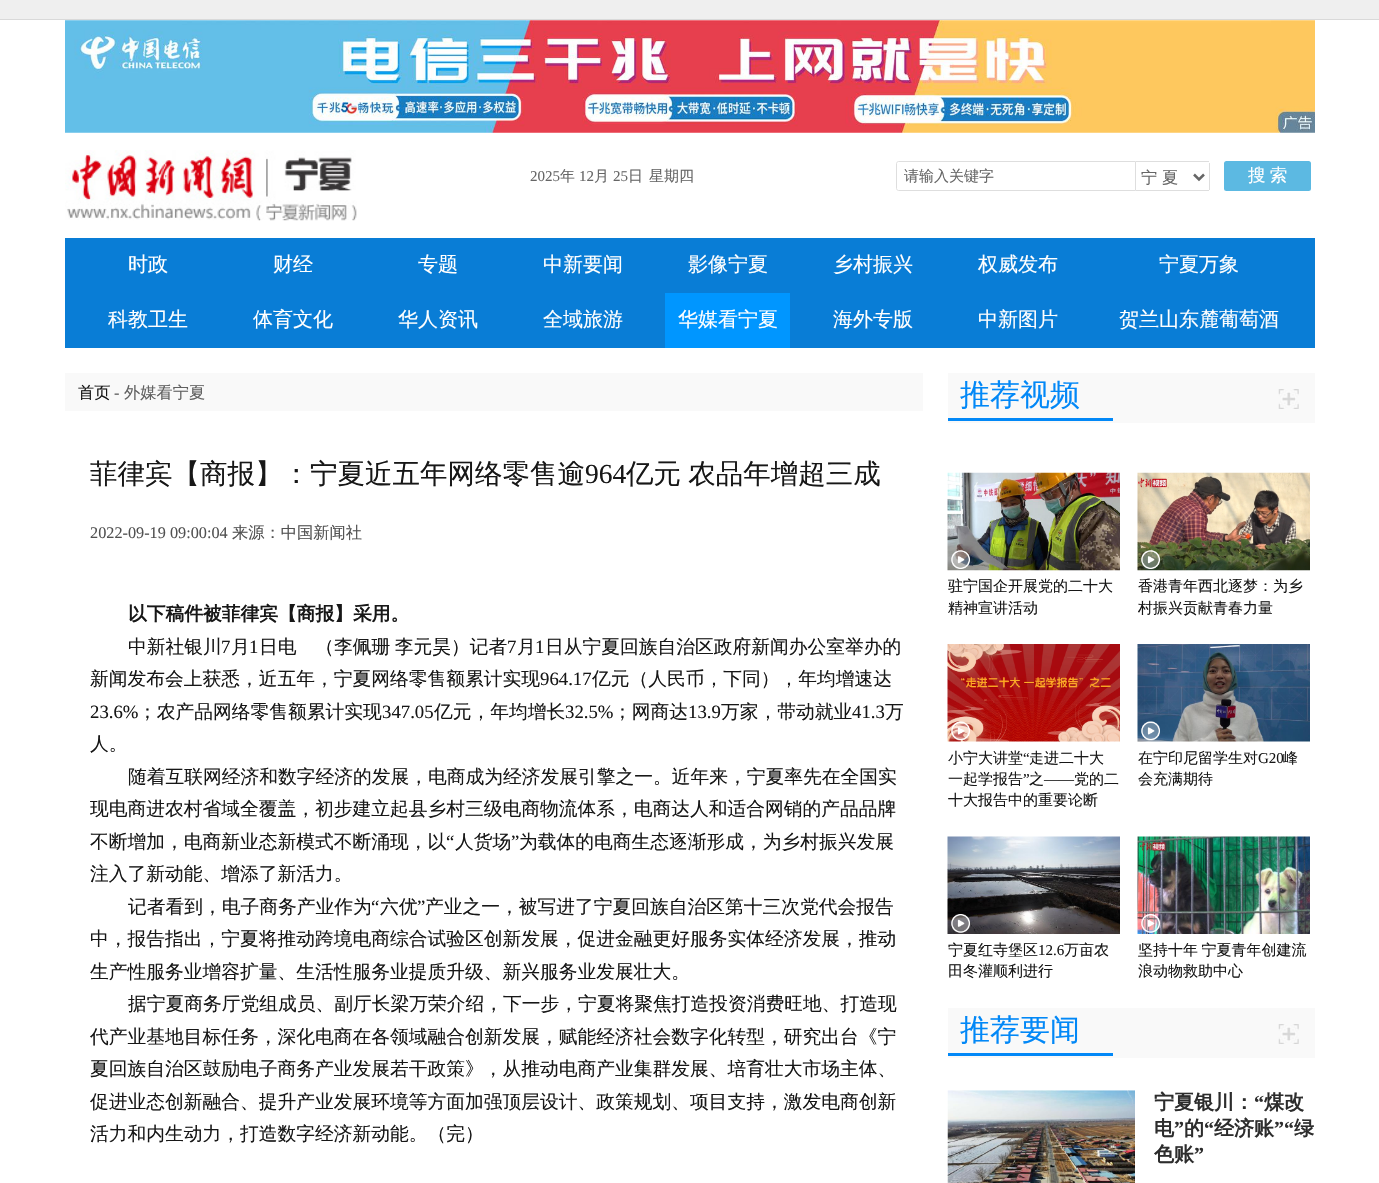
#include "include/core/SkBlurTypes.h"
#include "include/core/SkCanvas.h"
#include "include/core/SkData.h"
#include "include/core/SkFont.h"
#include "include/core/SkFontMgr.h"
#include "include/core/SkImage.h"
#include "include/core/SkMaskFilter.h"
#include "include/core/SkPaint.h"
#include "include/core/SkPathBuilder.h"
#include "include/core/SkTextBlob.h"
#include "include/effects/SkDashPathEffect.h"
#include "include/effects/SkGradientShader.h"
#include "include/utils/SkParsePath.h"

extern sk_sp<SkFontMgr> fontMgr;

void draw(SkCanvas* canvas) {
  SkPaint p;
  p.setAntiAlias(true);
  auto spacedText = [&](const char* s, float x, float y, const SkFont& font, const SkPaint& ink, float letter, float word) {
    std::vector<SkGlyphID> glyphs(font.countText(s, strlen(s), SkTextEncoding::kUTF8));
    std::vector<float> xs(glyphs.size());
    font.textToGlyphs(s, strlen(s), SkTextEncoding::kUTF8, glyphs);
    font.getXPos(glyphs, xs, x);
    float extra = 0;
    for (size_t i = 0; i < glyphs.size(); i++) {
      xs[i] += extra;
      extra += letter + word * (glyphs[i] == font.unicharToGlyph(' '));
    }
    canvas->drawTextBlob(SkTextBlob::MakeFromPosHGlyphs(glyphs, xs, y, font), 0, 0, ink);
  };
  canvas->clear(SK_ColorWHITE);
  p.setColor(SkColorSetRGB(239, 239, 239));
  canvas->drawRect(SkRect::MakeLTRB(0, 0, 1379, 19), p);
  p.setColor(SkColorSetRGB(217, 217, 217));
  canvas->drawRect(SkRect::MakeLTRB(0, 19, 1379, 20), p);
  canvas->drawImageRect(SkImages::DeferredFromEncodedData(SkData::MakeFromFileName("images/1.png")), SkRect::MakeLTRB(65, 20, 1315, 133), SkSamplingOptions());
  canvas->drawImageRect(SkImages::DeferredFromEncodedData(SkData::MakeFromFileName("images/2.png")), SkRect::MakeLTRB(65, 150, 357, 221), SkSamplingOptions());
  p.setStyle(SkPaint::kStroke_Style);
  p.setStrokeWidth(1);
  p.setColor(SkColorSetRGB(222, 222, 222));
  canvas->drawPath(SkPathBuilder().moveTo(898.5f, 161.5f).lineTo(1135.5f, 161.5f).lineTo(1135.5f, 190.5f).lineTo(898.5f, 190.5f).cubicTo(897.5f, 190.5f, 896.5f, 189.5f, 896.5f, 188.5f).lineTo(896.5f, 163.5f).cubicTo(896.5f, 162.5f, 897.5f, 161.5f, 898.5f, 161.5f).close().detach(), p);
  p.setStyle(SkPaint::kFill_Style);
  canvas->drawRect(SkRect::MakeLTRB(1136, 161, 1209, 162), p);
  canvas->drawRect(SkRect::MakeLTRB(1209, 163, 1210, 190), p);
  canvas->drawRect(SkRect::MakeLTRB(1136, 190, 1209, 191), p);
  p.setStyle(SkPaint::kStroke_Style);
  p.setStrokeWidth(2.5f);
  p.setColor(SkColorSetRGB(102, 102, 102));
  canvas->drawPath(SkPathBuilder().moveTo(1194, 174.5f).lineTo(1199, 179.5f).lineTo(1204, 174.5f).detach(), p);
  p.setStyle(SkPaint::kFill_Style);
  p.setColor(SkColorSetRGB(92, 185, 226));
  canvas->drawRoundRect(SkRect::MakeLTRB(1224, 161, 1311, 191), 2.5f, 2.5f, p);
  p.setColor(SkColorSetRGB(9, 125, 214));
  canvas->drawRect(SkRect::MakeLTRB(65, 238, 1315, 348), p);
  p.setColor(SkColorSetRGB(0, 150, 255));
  canvas->drawRect(SkRect::MakeLTRB(665, 293, 790, 348), p);
  p.setColor(SkColorSetRGB(249, 249, 249));
  canvas->drawRect(SkRect::MakeLTRB(65, 373, 923, 411), p);
  canvas->drawRect(SkRect::MakeLTRB(948, 373, 1315, 423), p);
  p.setColor(SkColorSetRGB(2, 136, 247));
  canvas->drawRect(SkRect::MakeLTRB(948, 418, 1113, 421), p);
  canvas->drawImageRect(SkImages::DeferredFromEncodedData(SkData::MakeFromFileName("images/3.png")), SkRect::MakeLTRB(1278, 389, 1299, 409), SkSamplingOptions());
  canvas->drawImageRect(SkImages::DeferredFromEncodedData(SkData::MakeFromFileName("images/4.png")), SkRect::MakeLTRB(947, 472, 1120, 571), SkSamplingOptions());
  canvas->drawImageRect(SkImages::DeferredFromEncodedData(SkData::MakeFromFileName("images/5.png")), SkRect::MakeLTRB(951, 550, 970, 569), SkSamplingOptions());
  canvas->drawImageRect(SkImages::DeferredFromEncodedData(SkData::MakeFromFileName("images/6.png")), SkRect::MakeLTRB(1137, 472, 1310, 571), SkSamplingOptions());
  canvas->drawImageRect(SkImages::DeferredFromEncodedData(SkData::MakeFromFileName("images/7.png")), SkRect::MakeLTRB(1141, 550, 1160, 569), SkSamplingOptions());
  canvas->drawImageRect(SkImages::DeferredFromEncodedData(SkData::MakeFromFileName("images/8.png")), SkRect::MakeLTRB(947, 644, 1120, 742), SkSamplingOptions());
  canvas->drawImageRect(SkImages::DeferredFromEncodedData(SkData::MakeFromFileName("images/9.png")), SkRect::MakeLTRB(951, 721, 970, 741), SkSamplingOptions());
  canvas->drawImageRect(SkImages::DeferredFromEncodedData(SkData::MakeFromFileName("images/10.png")), SkRect::MakeLTRB(1137, 644, 1310, 742), SkSamplingOptions());
  canvas->drawImageRect(SkImages::DeferredFromEncodedData(SkData::MakeFromFileName("images/11.png")), SkRect::MakeLTRB(1141, 721, 1160, 741), SkSamplingOptions());
  canvas->drawImageRect(SkImages::DeferredFromEncodedData(SkData::MakeFromFileName("images/12.png")), SkRect::MakeLTRB(947, 836, 1120, 934), SkSamplingOptions());
  canvas->drawImageRect(SkImages::DeferredFromEncodedData(SkData::MakeFromFileName("images/13.png")), SkRect::MakeLTRB(951, 914, 970, 933), SkSamplingOptions());
  canvas->drawImageRect(SkImages::DeferredFromEncodedData(SkData::MakeFromFileName("images/14.png")), SkRect::MakeLTRB(1137, 836, 1310, 934), SkSamplingOptions());
  canvas->drawImageRect(SkImages::DeferredFromEncodedData(SkData::MakeFromFileName("images/15.png")), SkRect::MakeLTRB(1141, 914, 1160, 933), SkSamplingOptions());
  p.setColor(SkColorSetRGB(249, 249, 249));
  canvas->drawRect(SkRect::MakeLTRB(948, 1008, 1315, 1058), p);
  p.setColor(SkColorSetRGB(2, 136, 247));
  canvas->drawRect(SkRect::MakeLTRB(948, 1053, 1113, 1056), p);
  canvas->drawImageRect(SkImages::DeferredFromEncodedData(SkData::MakeFromFileName("images/3.png")), SkRect::MakeLTRB(1278, 1024, 1299, 1044), SkSamplingOptions());
  canvas->drawImageRect(SkImages::DeferredFromEncodedData(SkData::MakeFromFileName("images/16.png")), SkRect::MakeLTRB(947, 1090, 1135, 1183), SkSamplingOptions());
  SkFont font1(fontMgr->matchFamilyStyle("Liberation Serif", SkFontStyle::Normal()), 15);
  font1.setSubpixel(true);
  p.setColor(SkColorSetRGB(102, 102, 102));
  canvas->drawString("2025", 530, 181, font1, p);
  SkFont font2(fontMgr->matchFamilyStyle("WenQuanYi Zen Hei", SkFontStyle(500, SkFontStyle::kNormal_Width, SkFontStyle::kUpright_Slant)), 15);
  font2.setSubpixel(true);
  canvas->drawString("年", 560, 181, font2, p);
  canvas->drawString("12", 579, 181, font1, p);
  canvas->drawString("月", 594, 181, font2, p);
  canvas->drawString("25", 613, 181, font1, p);
  canvas->drawString("日", 628, 181, font2, p);
  canvas->drawString("星期四", 649, 181, font2, p);
  canvas->drawString("请输入关键字", 904, 181, font2, p);
  SkFont font3(fontMgr->matchFamilyStyle("WenQuanYi Zen Hei", SkFontStyle(500, SkFontStyle::kNormal_Width, SkFontStyle::kUpright_Slant)), 16.25f);
  font3.setSubpixel(true);
  canvas->drawString("宁 夏", 1141, 183, font3, p);
  SkFont font4(fontMgr->matchFamilyStyle("WenQuanYi Zen Hei", SkFontStyle(500, SkFontStyle::kNormal_Width, SkFontStyle::kUpright_Slant)), 17.5f);
  font4.setSubpixel(true);
  p.setColor(SK_ColorWHITE);
  spacedText("搜 索", 1248, 181, font4, p, 0, -1);
  SkFont font5(fontMgr->matchFamilyStyle("WenQuanYi Zen Hei", SkFontStyle(500, SkFontStyle::kNormal_Width, SkFontStyle::kUpright_Slant)), 20);
  font5.setSubpixel(true);
  canvas->drawString("时政", 128, 271, font5, p);
  canvas->drawString("财经", 273, 271, font5, p);
  canvas->drawString("专题", 418, 271, font5, p);
  canvas->drawString("中新要闻", 543, 271, font5, p);
  canvas->drawString("影像宁夏", 688, 271, font5, p);
  canvas->drawString("乡村振兴", 833, 271, font5, p);
  canvas->drawString("权威发布", 978, 271, font5, p);
  canvas->drawString("宁夏万象", 1159, 271, font5, p);
  canvas->drawString("科教卫生", 108, 326, font5, p);
  canvas->drawString("体育文化", 253, 326, font5, p);
  canvas->drawString("华人资讯", 398, 326, font5, p);
  canvas->drawString("全域旅游", 543, 326, font5, p);
  canvas->drawString("华媒看宁夏", 678, 326, font5, p);
  canvas->drawString("海外专版", 833, 326, font5, p);
  canvas->drawString("中新图片", 978, 326, font5, p);
  canvas->drawString("贺兰山东麓葡萄酒", 1119, 326, font5, p);
  p.setColor(SkColorSetRGB(23, 23, 23));
  canvas->drawString("首页", 78, 398, font3, p);
  SkFont font6(fontMgr->matchFamilyStyle("Liberation Serif", SkFontStyle::Normal()), 16.25f);
  font6.setSubpixel(true);
  p.setColor(SkColorSetRGB(96, 96, 96));
  canvas->drawString("-", 114, 398, font6, p);
  canvas->drawString("外媒看宁夏", 124, 398, font3, p);
  SkFont font7(fontMgr->matchFamilyStyle("WenQuanYi Zen Hei", SkFontStyle(500, SkFontStyle::kNormal_Width, SkFontStyle::kUpright_Slant)), 27.5f);
  font7.setSubpixel(true);
  p.setColor(SkColorSetRGB(23, 23, 23));
  canvas->drawString("菲律宾【商报】：宁夏近五年网络零售逾", 90, 483, font7, p);
  SkFont font8(fontMgr->matchFamilyStyle("Liberation Serif", SkFontStyle::Normal()), 27.5f);
  font8.setSubpixel(true);
  canvas->drawString("964", 585, 483, font8, p);
  spacedText("亿元 农品年增超三成", 626, 483, font7, p, 0, -1);
  p.setColor(SkColorSetRGB(81, 81, 81));
  canvas->drawString("2022-09-19 09:00:04", 90, 538, font6, p);
  canvas->drawString("来源：中国新闻社", 232, 538, font3, p);
  SkFont font9(fontMgr->matchFamilyStyle("WenQuanYi Zen Hei", SkFontStyle::Bold()), 18.75f);
  font9.setSubpixel(true);
  p.setColor(SkColorSetRGB(23, 23, 23));
  canvas->drawString("以下稿件被菲律宾【商报】采用。", 128, 620, font9, p);
  SkFont font10(fontMgr->matchFamilyStyle("WenQuanYi Zen Hei", SkFontStyle(500, SkFontStyle::kNormal_Width, SkFontStyle::kUpright_Slant)), 18.75f);
  font10.setSubpixel(true);
  canvas->drawString("中新社银川", 128, 653, font10, p);
  SkFont font11(fontMgr->matchFamilyStyle("Liberation Serif", SkFontStyle::Normal()), 18.75f);
  font11.setSubpixel(true);
  canvas->drawString("7", 221, 653, font11, p);
  canvas->drawString("月", 231, 653, font10, p);
  canvas->drawString("1", 249, 653, font11, p);
  spacedText("日电　（李佩珊 李元昊）记者", 259, 653, font10, p, 0, -1);
  canvas->drawString("7", 507, 653, font11, p);
  canvas->drawString("月", 517, 653, font10, p);
  canvas->drawString("1", 535, 653, font11, p);
  canvas->drawString("日从宁夏回族自治区政府新闻办公室举办的", 545, 653, font10, p);
  canvas->drawString("新闻发布会上获悉，近五年，宁夏网络零售额累计实现", 90, 685, font10, p);
  canvas->drawString("964.17", 540, 685, font11, p);
  canvas->drawString("亿元（人民币，下同），年均增速达", 592, 685, font10, p);
  canvas->drawString("23.6%", 90, 718, font11, p);
  canvas->drawString("；农产品网络零售额累计实现", 138, 718, font10, p);
  canvas->drawString("347.05", 382, 718, font11, p);
  canvas->drawString("亿元，年均增长", 434, 718, font10, p);
  canvas->drawString("32.5%", 565, 718, font11, p);
  canvas->drawString("；网商达", 613, 718, font10, p);
  canvas->drawString("13.9", 688, 718, font11, p);
  canvas->drawString("万家，带动就业", 721, 718, font10, p);
  canvas->drawString("41.3", 852, 718, font11, p);
  canvas->drawString("万", 885, 718, font10, p);
  canvas->drawString("人。", 90, 750, font10, p);
  canvas->drawString("随着互联网经济和数字经济的发展，电商成为经济发展引擎之一。近年来，宁夏率先在全国实", 128, 783, font10, p);
  canvas->drawString("现电商进农村省域全覆盖，初步建立起县乡村三级电商物流体系，电商达人和适合网销的产品品牌", 90, 815, font10, p);
  canvas->drawString("不断增加，电商新业态新模式不断涌现，以", 90, 848, font10, p);
  canvas->drawString("“", 446, 848, font11, p);
  canvas->drawString("人货场", 455, 848, font10, p);
  canvas->drawString("”", 511, 848, font11, p);
  canvas->drawString("为载体的电商生态逐渐形成，为乡村振兴发展", 519, 848, font10, p);
  canvas->drawString("注入了新动能、增添了新活力。", 90, 880, font10, p);
  canvas->drawString("记者看到，电子商务产业作为", 128, 913, font10, p);
  canvas->drawString("“", 371, 913, font11, p);
  canvas->drawString("六优", 380, 913, font10, p);
  canvas->drawString("”", 417, 913, font11, p);
  canvas->drawString("产业之一，被写进了宁夏回族自治区第十三次党代会报告", 425, 913, font10, p);
  canvas->drawString("中，报告指出，宁夏将推动跨境电商综合试验区创新发展，促进金融更好服务实体经济发展，推动", 90, 945, font10, p);
  canvas->drawString("生产性服务业增容扩量、生活性服务业提质升级、新兴服务业发展壮大。", 90, 978, font10, p);
  canvas->drawString("据宁夏商务厅党组成员、副厅长梁万荣介绍，下一步，宁夏将聚焦打造投资消费旺地、打造现", 128, 1010, font10, p);
  canvas->drawString("代产业基地目标任务，深化电商在各领域融合创新发展，赋能经济社会数字化转型，研究出台《宁", 90, 1043, font10, p);
  canvas->drawString("夏回族自治区鼓励电子商务产业发展若干政策》，从推动电商产业集群发展、培育壮大市场主体、", 90, 1075, font10, p);
  canvas->drawString("促进业态创新融合、提升产业发展环境等方面加强顶层设计、政策规划、项目支持，激发电商创新", 90, 1108, font10, p);
  canvas->drawString("活力和内生动力，打造数字经济新动能。（完）", 90, 1140, font10, p);
  SkFont font12(fontMgr->matchFamilyStyle("WenQuanYi Zen Hei", SkFontStyle(500, SkFontStyle::kNormal_Width, SkFontStyle::kUpright_Slant)), 30);
  font12.setSubpixel(true);
  p.setColor(SkColorSetRGB(2, 136, 247));
  canvas->drawString("推荐视频", 960, 405, font12, p);
  p.setColor(SkColorSetRGB(23, 23, 23));
  canvas->drawString("驻宁国企开展党的二十大", 948, 591, font2, p);
  canvas->drawString("精神宣讲活动", 948, 613, font2, p);
  canvas->drawString("香港青年西北逐梦：为乡", 1138, 591, font2, p);
  canvas->drawString("村振兴贡献青春力量", 1138, 613, font2, p);
  canvas->drawString("小宁大讲堂", 948, 763, font2, p);
  canvas->drawString("“", 1023, 763, font1, p);
  canvas->drawString("走进二十大", 1029, 763, font2, p);
  canvas->drawString("一起学报告", 948, 784, font2, p);
  canvas->drawString("”", 1023, 784, font1, p);
  canvas->drawString("之", 1029, 784, font2, p);
  canvas->drawString("——", 1044, 784, font1, p);
  canvas->drawString("党的二", 1074, 784, font2, p);
  canvas->drawString("十大报告中的重要论断", 948, 805, font2, p);
  canvas->drawString("在宁印尼留学生对", 1138, 763, font2, p);
  canvas->drawString("G20", 1258, 763, font1, p);
  canvas->drawString("峰", 1283, 763, font2, p);
  canvas->drawString("会充满期待", 1138, 784, font2, p);
  canvas->drawString("宁夏红寺堡区", 948, 955, font2, p);
  canvas->drawString("12.6", 1038, 955, font1, p);
  canvas->drawString("万亩农", 1064, 955, font2, p);
  canvas->drawString("田冬灌顺利进行", 948, 976, font2, p);
  spacedText("坚持十年 宁夏青年创建流", 1138, 955, font2, p, 0, -1);
  canvas->drawString("浪动物救助中心", 1138, 976, font2, p);
  p.setColor(SkColorSetRGB(2, 136, 247));
  canvas->drawString("推荐要闻", 960, 1040, font12, p);
  SkFont font13(fontMgr->matchFamilyStyle("WenQuanYi Zen Hei", SkFontStyle::Bold()), 20);
  font13.setSubpixel(true);
  p.setColor(SkColorSetRGB(45, 45, 45));
  canvas->drawString("宁夏银川：", 1154, 1109, font13, p);
  SkFont font14(fontMgr->matchFamilyStyle("Liberation Serif", SkFontStyle::Bold()), 20);
  font14.setSubpixel(true);
  canvas->drawString("“", 1254, 1109, font14, p);
  canvas->drawString("煤改", 1264, 1109, font13, p);
  canvas->drawString("电", 1154, 1135, font13, p);
  canvas->drawString("”", 1174, 1135, font14, p);
  canvas->drawString("的", 1184, 1135, font13, p);
  canvas->drawString("“", 1204, 1135, font14, p);
  canvas->drawString("经济账", 1214, 1135, font13, p);
  canvas->drawString("”“", 1274, 1135, font14, p);
  canvas->drawString("绿", 1294, 1135, font13, p);
  canvas->drawString("色账", 1154, 1161, font13, p);
  canvas->drawString("”", 1194, 1161, font14, p);
}
